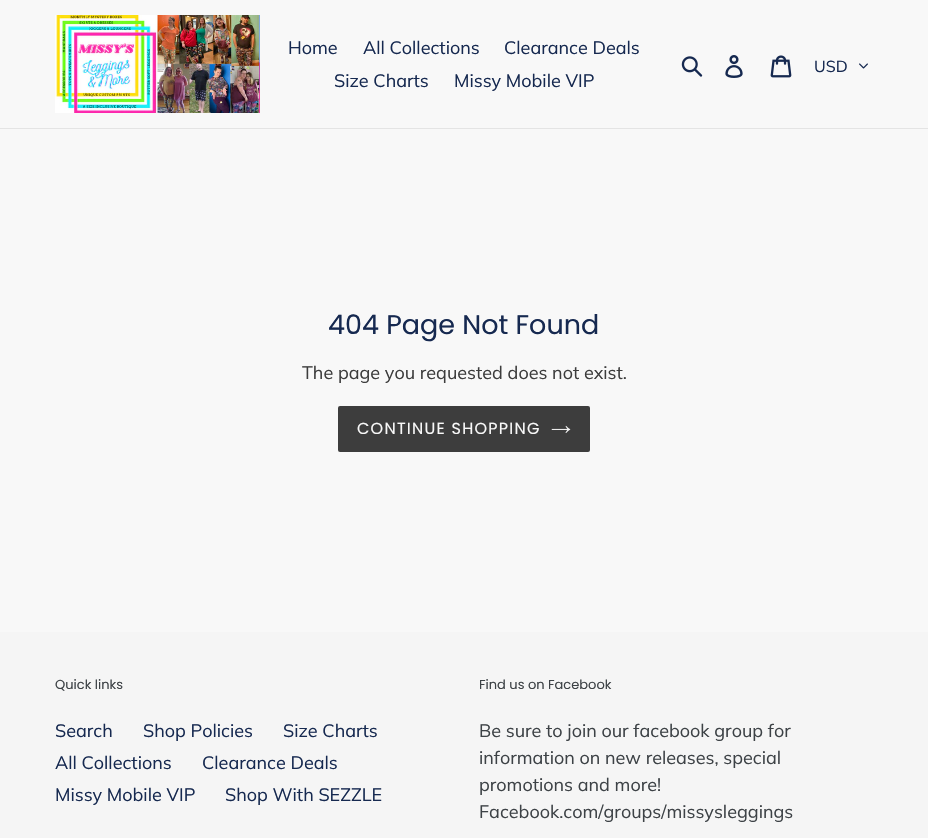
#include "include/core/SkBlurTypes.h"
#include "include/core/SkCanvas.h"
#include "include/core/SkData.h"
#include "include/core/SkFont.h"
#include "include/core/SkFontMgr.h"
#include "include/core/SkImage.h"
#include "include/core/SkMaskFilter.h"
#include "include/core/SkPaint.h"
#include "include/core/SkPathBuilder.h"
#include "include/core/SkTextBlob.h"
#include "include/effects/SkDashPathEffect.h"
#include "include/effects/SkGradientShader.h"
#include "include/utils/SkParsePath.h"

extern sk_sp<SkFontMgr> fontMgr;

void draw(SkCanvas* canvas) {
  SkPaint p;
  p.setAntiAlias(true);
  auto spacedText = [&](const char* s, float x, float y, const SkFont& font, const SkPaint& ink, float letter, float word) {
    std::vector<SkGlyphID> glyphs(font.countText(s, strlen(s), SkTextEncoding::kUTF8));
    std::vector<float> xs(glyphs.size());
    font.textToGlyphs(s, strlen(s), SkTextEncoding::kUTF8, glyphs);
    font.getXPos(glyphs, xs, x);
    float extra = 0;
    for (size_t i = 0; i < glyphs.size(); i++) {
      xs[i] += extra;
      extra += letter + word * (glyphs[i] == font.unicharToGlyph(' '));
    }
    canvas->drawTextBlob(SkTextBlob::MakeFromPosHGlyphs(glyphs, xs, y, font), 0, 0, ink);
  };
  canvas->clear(SkColorSetRGB(248, 248, 248));
  p.setColor(SkColorSetRGB(228, 228, 228));
  canvas->drawRect(SkRect::MakeLTRB(0, 128, 928, 129), p);
  canvas->drawImageRect(SkImages::DeferredFromEncodedData(SkData::MakeFromFileName("images/1.png")), SkRect::MakeLTRB(55, 15, 260, 113), SkSamplingOptions());
  canvas->drawImageRect(SkImages::DeferredFromEncodedData(SkData::MakeFromFileName("images/2.png")), SkRect::MakeLTRB(681, 56, 703, 77), SkSamplingOptions());
  canvas->drawImageRect(SkImages::DeferredFromEncodedData(SkData::MakeFromFileName("images/3.png")), SkRect::MakeLTRB(725, 55, 743, 78), SkSamplingOptions());
  canvas->drawImageRect(SkImages::DeferredFromEncodedData(SkData::MakeFromFileName("images/4.png")), SkRect::MakeLTRB(770, 55, 792, 78), SkSamplingOptions());
  canvas->drawImageRect(SkImages::DeferredFromEncodedData(SkData::MakeFromFileName("images/5.png")), SkRect::MakeLTRB(859, 63, 868, 69), SkSamplingOptions());
  p.setColor(SkColorSetRGB(61, 61, 61));
  canvas->drawRoundRect(SkRect::MakeLTRB(338, 406, 590, 452), 2, 2, p);
  canvas->drawImageRect(SkImages::DeferredFromEncodedData(SkData::MakeFromFileName("images/6.png")), SkRect::MakeLTRB(551, 425, 571, 433), SkSamplingOptions());
  p.setColor(SkColorSetRGB(245, 245, 245));
  canvas->drawRect(SkRect::MakeLTRB(0, 632, 928, 838), p);
  SkFont font1(fontMgr->matchFamilyStyle("Muli", SkFontStyle::Normal()), 18);
  font1.setSubpixel(true);
  p.setColor(SkColorSetRGB(22, 41, 80));
  canvas->drawString("Home", 288, 54, font1, p);
  canvas->drawString("All Collections", 363, 54, font1, p);
  canvas->drawString("Clearance Deals", 504, 54, font1, p);
  canvas->drawString("Size Charts", 334, 87, font1, p);
  canvas->drawString("Missy Mobile VIP", 454, 87, font1, p);
  SkFont font2(fontMgr->matchFamilyStyle("Muli", SkFontStyle::Normal()), 16);
  font2.setSubpixel(true);
  canvas->drawString("USD", 814, 72, font2, p);
  SkFont font3(fontMgr->matchFamilyStyle("Poppins", SkFontStyle::Normal()), 27);
  font3.setSubpixel(true);
  canvas->drawString("404 Page Not Found", 328, 334, font3, p);
  p.setColor(SkColorSetRGB(61, 61, 61));
  canvas->drawString("The page you requested does not exist.", 302, 379, font1, p);
  SkFont font4(fontMgr->matchFamilyStyle("Poppins", SkFontStyle::Normal()), 16);
  font4.setSubpixel(true);
  p.setColor(SkColorSetRGB(248, 248, 248));
  spacedText("CONTINUE SHOPPING", 357, 434, font4, p, 1.25f, 0);
  SkFont font5(fontMgr->matchFamilyStyle("Poppins", SkFontStyle::Normal()), 13);
  font5.setSubpixel(true);
  p.setColor(SkColorSetRGB(61, 66, 70));
  canvas->drawString("Quick links", 55, 689, font5, p);
  p.setColor(SkColorSetRGB(22, 41, 80));
  canvas->drawString("Search", 55, 737, font1, p);
  canvas->drawString("Shop Policies", 143, 737, font1, p);
  canvas->drawString("Size Charts", 283, 737, font1, p);
  canvas->drawString("All Collections", 55, 769, font1, p);
  canvas->drawString("Clearance Deals", 202, 769, font1, p);
  canvas->drawString("Missy Mobile VIP", 55, 801, font1, p);
  canvas->drawString("Shop With SEZZLE", 225, 801, font1, p);
  p.setColor(SkColorSetRGB(61, 66, 70));
  canvas->drawString("Find us on Facebook", 479, 689, font5, p);
  canvas->drawString("Be sure to join our facebook group for", 479, 737, font1, p);
  canvas->drawString("information on new releases, special", 479, 764, font1, p);
  canvas->drawString("promotions and more!", 479, 791, font1, p);
  canvas->drawString("Facebook.com/groups/missysleggings", 479, 818, font1, p);
}
